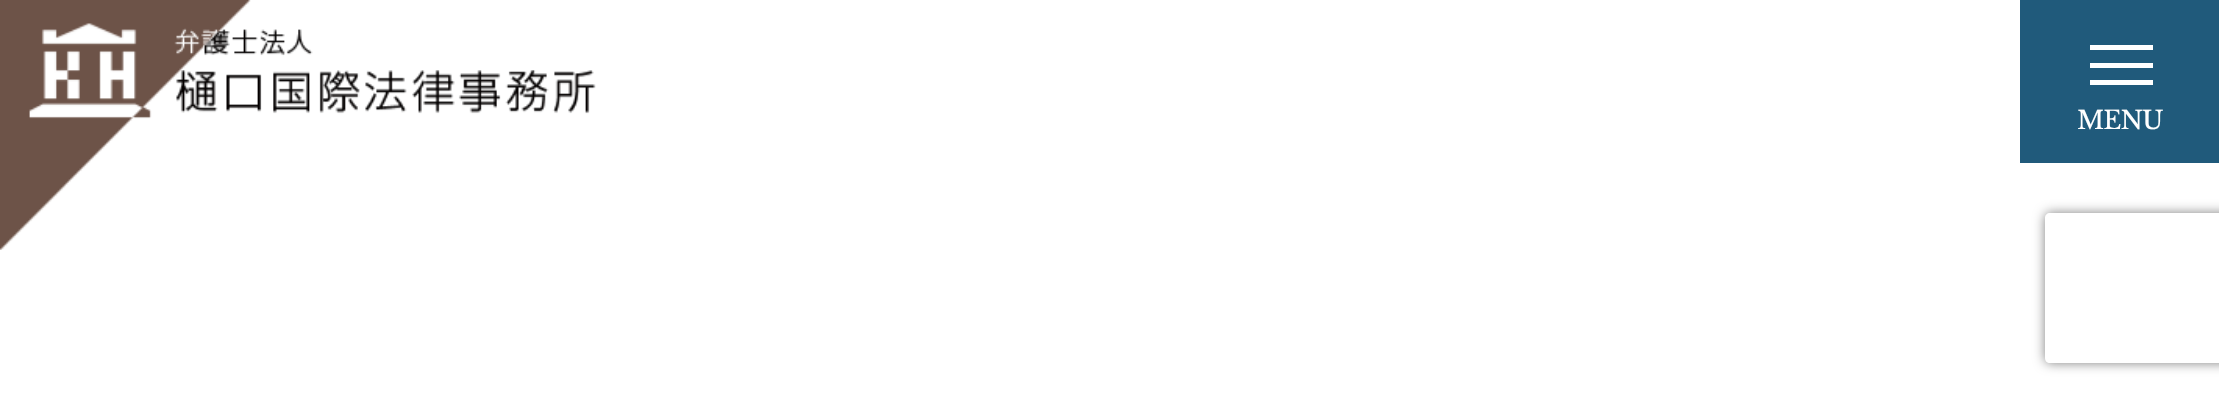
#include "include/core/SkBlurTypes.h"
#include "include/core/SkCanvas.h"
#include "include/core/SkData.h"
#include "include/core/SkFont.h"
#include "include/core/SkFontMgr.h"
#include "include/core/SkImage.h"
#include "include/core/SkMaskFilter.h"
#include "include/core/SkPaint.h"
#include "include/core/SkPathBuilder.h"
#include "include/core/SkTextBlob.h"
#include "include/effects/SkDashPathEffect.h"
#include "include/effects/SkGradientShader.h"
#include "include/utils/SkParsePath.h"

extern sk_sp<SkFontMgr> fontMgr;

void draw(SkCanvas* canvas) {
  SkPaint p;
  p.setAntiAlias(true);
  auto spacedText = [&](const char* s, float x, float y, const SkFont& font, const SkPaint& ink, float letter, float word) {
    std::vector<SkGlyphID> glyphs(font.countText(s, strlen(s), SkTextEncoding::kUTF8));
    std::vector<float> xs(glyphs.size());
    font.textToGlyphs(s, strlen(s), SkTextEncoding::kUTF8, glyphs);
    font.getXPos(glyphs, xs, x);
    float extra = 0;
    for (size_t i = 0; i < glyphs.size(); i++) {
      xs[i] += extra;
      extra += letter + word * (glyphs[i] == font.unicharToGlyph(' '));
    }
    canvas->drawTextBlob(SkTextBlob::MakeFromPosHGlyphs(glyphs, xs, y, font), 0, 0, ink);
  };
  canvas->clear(SK_ColorWHITE);
  canvas->drawImageRect(SkImages::DeferredFromEncodedData(SkData::MakeFromFileName("images/1.png")), SkRect::MakeLTRB(0, 0, 596, 250), SkSamplingOptions());
  p.setColor(SkColorSetRGB(32, 90, 123));
  canvas->drawRect(SkRect::MakeLTRB(2020, 0, 2219, 163), p);
  p.setColor(SK_ColorWHITE);
  canvas->drawRect(SkRect::MakeLTRB(2090, 63, 2153, 68), p);
  canvas->drawRect(SkRect::MakeLTRB(2090, 45, 2153, 50), p);
  canvas->drawRect(SkRect::MakeLTRB(2090, 80, 2153, 85), p);
  canvas->save();
  canvas->clipPath(SkPathBuilder(SkPathFillType::kEvenOdd).moveTo(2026, 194).lineTo(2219, 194).lineTo(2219, 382).lineTo(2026, 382).close().moveTo(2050, 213).lineTo(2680, 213).cubicTo(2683, 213, 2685, 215, 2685, 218).lineTo(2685, 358).cubicTo(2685, 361, 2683, 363, 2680, 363).lineTo(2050, 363).cubicTo(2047, 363, 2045, 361, 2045, 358).lineTo(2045, 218).cubicTo(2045, 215, 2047, 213, 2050, 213).close().detach(), true);
  p.setColor(SkColorSetRGB(128, 128, 128));
  p.setMaskFilter(SkMaskFilter::MakeBlur(kNormal_SkBlurStyle, 6));
  canvas->drawRoundRect(SkRect::MakeLTRB(2045, 213, 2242, 363), 5, 5, p);
  p.setMaskFilter(nullptr);
  canvas->restore();
  SkFont font1(fontMgr->matchFamilyStyle("Libre Baskerville", SkFontStyle::Normal()), 25);
  font1.setSubpixel(true);
  p.setColor(SK_ColorWHITE);
  spacedText("MENU", 2077, 129, font1, p, -1, 0);
}
